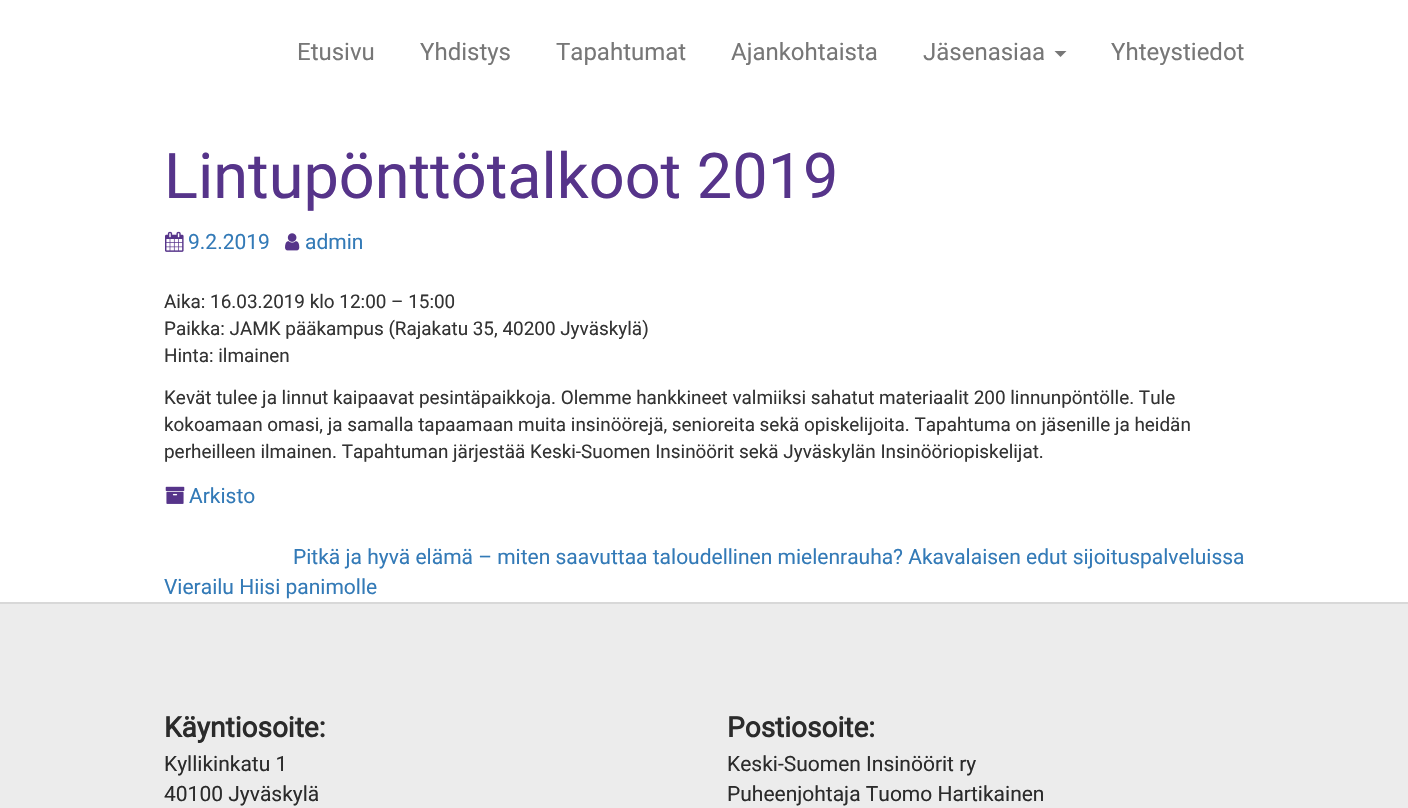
#include "include/core/SkBlurTypes.h"
#include "include/core/SkCanvas.h"
#include "include/core/SkData.h"
#include "include/core/SkFont.h"
#include "include/core/SkFontMgr.h"
#include "include/core/SkImage.h"
#include "include/core/SkMaskFilter.h"
#include "include/core/SkPaint.h"
#include "include/core/SkPathBuilder.h"
#include "include/core/SkTextBlob.h"
#include "include/effects/SkDashPathEffect.h"
#include "include/effects/SkGradientShader.h"
#include "include/utils/SkParsePath.h"

extern sk_sp<SkFontMgr> fontMgr;

void draw(SkCanvas* canvas) {
  SkPaint p;
  p.setAntiAlias(true);
  canvas->clear(SK_ColorWHITE);
  p.setColor(SkColorSetRGB(119, 119, 119));
  canvas->drawPath(SkPathBuilder().moveTo(1054.5f, 51).lineTo(1066.5f, 51).lineTo(1060.5f, 57).close().detach(), p);
  canvas->drawImageRect(SkImages::DeferredFromEncodedData(SkData::MakeFromFileName("images/1.png")), SkRect::MakeLTRB(165, 231, 184, 252), SkSamplingOptions());
  canvas->drawImageRect(SkImages::DeferredFromEncodedData(SkData::MakeFromFileName("images/2.png")), SkRect::MakeLTRB(285, 233, 300, 251), SkSamplingOptions());
  canvas->drawImageRect(SkImages::DeferredFromEncodedData(SkData::MakeFromFileName("images/3.png")), SkRect::MakeLTRB(165, 486, 185, 504), SkSamplingOptions());
  p.setColor(SkColorSetRGB(236, 236, 236));
  canvas->drawRect(SkRect::MakeLTRB(0, 604, 1408, 808), p);
  p.setColor(SkColorSetRGB(216, 216, 216));
  canvas->drawRect(SkRect::MakeLTRB(0, 602, 1408, 604), p);
  SkFont font1(fontMgr->matchFamilyStyle("Roboto", SkFontStyle::Normal()), 24);
  font1.setSubpixel(true);
  p.setColor(SkColorSetRGB(119, 119, 119));
  canvas->drawString("Etusivu", 297, 60, font1, p);
  canvas->drawString("Yhdistys", 420, 60, font1, p);
  canvas->drawString("Tapahtumat", 556, 60, font1, p);
  canvas->drawString("Ajankohtaista", 731, 60, font1, p);
  canvas->drawString("Jäsenasiaa", 923, 60, font1, p);
  canvas->drawString("Yhteystiedot", 1111, 60, font1, p);
  SkFont font2(fontMgr->matchFamilyStyle("Roboto", SkFontStyle::Normal()), 63);
  font2.setSubpixel(true);
  p.setColor(SkColorSetRGB(86, 52, 138));
  canvas->drawString("Lintupönttötalkoot 2019", 164, 198, font2, p);
  SkFont font3(fontMgr->matchFamilyStyle("Roboto", SkFontStyle::Normal()), 21);
  font3.setSubpixel(true);
  p.setColor(SkColorSetRGB(51, 122, 183));
  canvas->drawString("9.2.2019", 188, 249, font3, p);
  canvas->drawString("admin", 305, 249, font3, p);
  SkFont font4(fontMgr->matchFamilyStyle("Roboto", SkFontStyle::Normal()), 18.9f);
  font4.setSubpixel(true);
  p.setColor(SkColorSetRGB(51, 51, 51));
  canvas->drawString("Aika: 16.03.2019 klo 12:00 – 15:00", 164, 308, font4, p);
  canvas->drawString("Paikka: JAMK pääkampus (Rajakatu 35, 40200 Jyväskylä)", 164, 335, font4, p);
  canvas->drawString("Hinta: ilmainen", 164, 362, font4, p);
  canvas->drawString("Kevät tulee ja linnut kaipaavat pesintäpaikkoja. Olemme hankkineet valmiiksi sahatut materiaalit 200 linnunpöntölle. Tule", 164, 404, font4, p);
  canvas->drawString("kokoamaan omasi, ja samalla tapaamaan muita insinöörejä, senioreita sekä opiskelijoita. Tapahtuma on jäsenille ja heidän", 164, 431, font4, p);
  canvas->drawString("perheilleen ilmainen. Tapahtuman järjestää Keski-Suomen Insinöörit sekä Jyväskylän Insinööriopiskelijat.", 164, 458, font4, p);
  p.setColor(SkColorSetRGB(51, 122, 183));
  canvas->drawString("Arkisto", 189, 503, font3, p);
  canvas->drawString("Pitkä ja hyvä elämä – miten saavuttaa taloudellinen mielenrauha? Akavalaisen edut sijoituspalveluissa", 293, 564, font3, p);
  canvas->drawString("Vierailu Hiisi panimolle", 164, 594, font3, p);
  SkFont font5(fontMgr->matchFamilyStyle("Roboto", SkFontStyle::Bold()), 28);
  font5.setSubpixel(true);
  p.setColor(SkColorSetRGB(43, 43, 43));
  canvas->drawString("Käyntiosoite:", 164, 737, font5, p);
  canvas->drawString("Kyllikinkatu 1", 164, 771, font3, p);
  canvas->drawString("40100 Jyväskylä", 164, 801, font3, p);
  canvas->drawString("Postiosoite:", 727, 737, font5, p);
  canvas->drawString("Keski-Suomen Insinöörit ry", 727, 771, font3, p);
  canvas->drawString("Puheenjohtaja Tuomo Hartikainen", 727, 801, font3, p);
}
